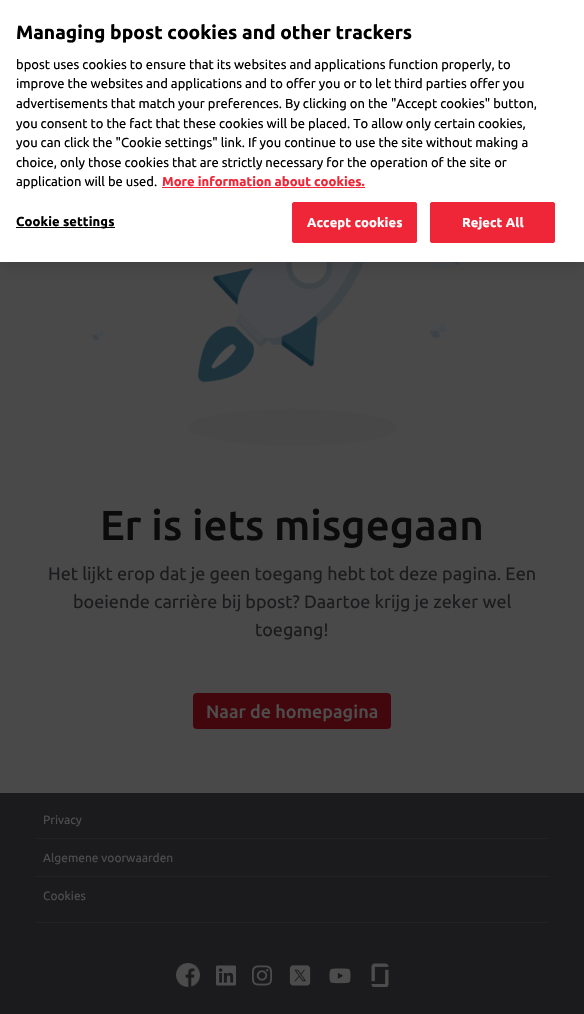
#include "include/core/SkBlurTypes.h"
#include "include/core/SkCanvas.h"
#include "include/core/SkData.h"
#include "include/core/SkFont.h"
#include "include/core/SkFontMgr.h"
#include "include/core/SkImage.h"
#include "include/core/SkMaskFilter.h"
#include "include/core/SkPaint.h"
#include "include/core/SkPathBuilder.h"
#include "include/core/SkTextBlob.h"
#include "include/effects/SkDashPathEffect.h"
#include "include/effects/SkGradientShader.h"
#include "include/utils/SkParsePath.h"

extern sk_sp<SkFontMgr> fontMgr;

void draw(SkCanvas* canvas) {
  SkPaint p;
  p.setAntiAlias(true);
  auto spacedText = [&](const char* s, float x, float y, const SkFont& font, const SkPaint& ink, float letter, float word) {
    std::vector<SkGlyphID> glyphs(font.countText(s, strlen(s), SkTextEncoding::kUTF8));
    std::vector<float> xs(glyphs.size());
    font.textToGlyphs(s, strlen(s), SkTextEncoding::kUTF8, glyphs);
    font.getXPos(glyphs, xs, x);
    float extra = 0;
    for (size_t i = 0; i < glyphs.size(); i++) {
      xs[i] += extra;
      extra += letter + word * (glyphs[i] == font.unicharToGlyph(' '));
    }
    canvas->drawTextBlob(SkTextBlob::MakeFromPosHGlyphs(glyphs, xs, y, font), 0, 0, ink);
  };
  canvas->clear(SkColorSetRGB(74, 73, 73));
  canvas->drawImageRect(SkImages::DeferredFromEncodedData(SkData::MakeFromFileName("images/1.png")), SkRect::MakeLTRB(91, 262, 460, 446), SkSamplingOptions());
  p.setColor(SkColorSetARGB(51, 0, 0, 0));
  p.setMaskFilter(SkMaskFilter::MakeBlur(kNormal_SkBlurStyle, 9));
  canvas->drawRect(SkRect::MakeLTRB(0, 0, 584, 262), p);
  p.setMaskFilter(nullptr);
  p.setColor(SK_ColorWHITE);
  canvas->drawRect(SkRect::MakeLTRB(0, 0, 584, 262), p);
  p.setColor(SkColorSetRGB(239, 38, 55));
  canvas->drawRect(SkRect::MakeLTRB(162, 187, 365, 188), p);
  p.setColor(SK_ColorBLACK);
  canvas->drawRect(SkRect::MakeLTRB(16, 227, 115, 228), p);
  p.setColor(SkColorSetRGB(239, 38, 55));
  canvas->drawRoundRect(SkRect::MakeLTRB(292.5f, 202.5f, 416.5f, 242.5f), 1.5f, 1.5f, p);
  p.setStyle(SkPaint::kStroke_Style);
  p.setStrokeWidth(1);
  canvas->drawRoundRect(SkRect::MakeLTRB(292.5f, 202.5f, 416.5f, 242.5f), 1.5f, 1.5f, p);
  p.setStyle(SkPaint::kFill_Style);
  canvas->drawRoundRect(SkRect::MakeLTRB(430.5f, 202.5f, 554.5f, 242.5f), 1.5f, 1.5f, p);
  p.setStyle(SkPaint::kStroke_Style);
  canvas->drawRoundRect(SkRect::MakeLTRB(430.5f, 202.5f, 554.5f, 242.5f), 1.5f, 1.5f, p);
  p.setStyle(SkPaint::kFill_Style);
  p.setColor(SkColorSetRGB(66, 7, 12));
  canvas->drawRoundRect(SkRect::MakeLTRB(193, 693, 391, 729), 4, 4, p);
  p.setColor(SkColorSetRGB(27, 27, 29));
  canvas->drawRect(SkRect::MakeLTRB(0, 793, 584, 1014), p);
  p.setColor(SkColorSetRGB(34, 34, 35));
  canvas->drawRect(SkRect::MakeLTRB(35, 838, 549, 839), p);
  canvas->drawRect(SkRect::MakeLTRB(35, 876, 549, 877), p);
  canvas->drawRect(SkRect::MakeLTRB(35, 922, 549, 923), p);
  canvas->drawImageRect(SkImages::DeferredFromEncodedData(SkData::MakeFromFileName("images/2.png")), SkRect::MakeLTRB(176, 963, 200, 987), SkSamplingOptions());
  canvas->drawImageRect(SkImages::DeferredFromEncodedData(SkData::MakeFromFileName("images/3.png")), SkRect::MakeLTRB(216, 965, 236, 986), SkSamplingOptions());
  canvas->drawImageRect(SkImages::DeferredFromEncodedData(SkData::MakeFromFileName("images/4.png")), SkRect::MakeLTRB(252, 965, 272, 986), SkSamplingOptions());
  canvas->drawImageRect(SkImages::DeferredFromEncodedData(SkData::MakeFromFileName("images/5.png")), SkRect::MakeLTRB(289, 965, 311, 986), SkSamplingOptions());
  canvas->drawImageRect(SkImages::DeferredFromEncodedData(SkData::MakeFromFileName("images/6.png")), SkRect::MakeLTRB(329, 968, 351, 984), SkSamplingOptions());
  canvas->drawImageRect(SkImages::DeferredFromEncodedData(SkData::MakeFromFileName("images/7.png")), SkRect::MakeLTRB(371, 963, 389, 987), SkSamplingOptions());
  SkFont font1(fontMgr->matchFamilyStyle("Ubuntu", SkFontStyle::Bold()), 19.2f);
  font1.setSubpixel(true);
  p.setColor(SK_ColorBLACK);
  canvas->drawString("Managing bpost cookies and other trackers", 16, 39, font1, p);
  SkFont font2(fontMgr->matchFamilyStyle("Ubuntu", SkFontStyle::Normal()), 13);
  font2.setSubpixel(true);
  canvas->drawString("bpost uses cookies to ensure that its websites and applications function properly, to", 16, 69, font2, p);
  canvas->drawString("improve the websites and applications and to offer you or to let third parties offer you", 16, 88, font2, p);
  canvas->drawString("advertisements that match your preferences. By clicking on the \"Accept cookies\" button,", 16, 108, font2, p);
  canvas->drawString("you consent to the fact that these cookies will be placed. To allow only certain cookies,", 16, 128, font2, p);
  canvas->drawString("you can click the \"Cookie settings\" link. If you continue to use the site without making a", 16, 147, font2, p);
  canvas->drawString("choice, only those cookies that are strictly necessary for the operation of the site or", 16, 167, font2, p);
  canvas->drawString("application will be used.", 16, 186, font2, p);
  SkFont font3(fontMgr->matchFamilyStyle("Ubuntu", SkFontStyle::Bold()), 13);
  font3.setSubpixel(true);
  p.setColor(SkColorSetRGB(239, 38, 55));
  canvas->drawString("More information about cookies.", 162, 186, font3, p);
  p.setColor(SK_ColorBLACK);
  spacedText("Cookie settings", 16, 226, font3, p, 0.1f, 0);
  p.setColor(SK_ColorWHITE);
  spacedText("Accept cookies", 307, 227, font3, p, 0.1f, 0);
  spacedText("Reject All", 462, 227, font3, p, 0.1f, 0);
  SkFont font4(fontMgr->matchFamilyStyle("Ubuntu", SkFontStyle(500, SkFontStyle::kNormal_Width, SkFontStyle::kUpright_Slant)), 42);
  font4.setSubpixel(true);
  p.setColor(SkColorSetRGB(11, 11, 11));
  canvas->drawString("Er is iets misgegaan", 100, 540, font4, p);
  SkFont font5(fontMgr->matchFamilyStyle("Ubuntu", SkFontStyle::Normal()), 18);
  font5.setSubpixel(true);
  p.setColor(SkColorSetRGB(27, 27, 29));
  canvas->drawString("Het lijkt erop dat je geen toegang hebt tot deze pagina. Een", 48, 580, font5, p);
  canvas->drawString("boeiende carrière bij bpost? Daartoe krijg je zeker wel", 73, 608, font5, p);
  canvas->drawString("toegang!", 255, 636, font5, p);
  SkFont font6(fontMgr->matchFamilyStyle("Ubuntu", SkFontStyle(500, SkFontStyle::kNormal_Width, SkFontStyle::kUpright_Slant)), 18);
  font6.setSubpixel(true);
  p.setColor(SkColorSetRGB(77, 77, 77));
  canvas->drawString("Naar de homepagina", 206, 718, font6, p);
  SkFont font7(fontMgr->matchFamilyStyle("Ubuntu", SkFontStyle::Normal()), 12);
  font7.setSubpixel(true);
  canvas->drawString("Privacy", 43, 824, font7, p);
  canvas->drawString("Algemene voorwaarden", 43, 862, font7, p);
  canvas->drawString("Cookies", 43, 900, font7, p);
}
